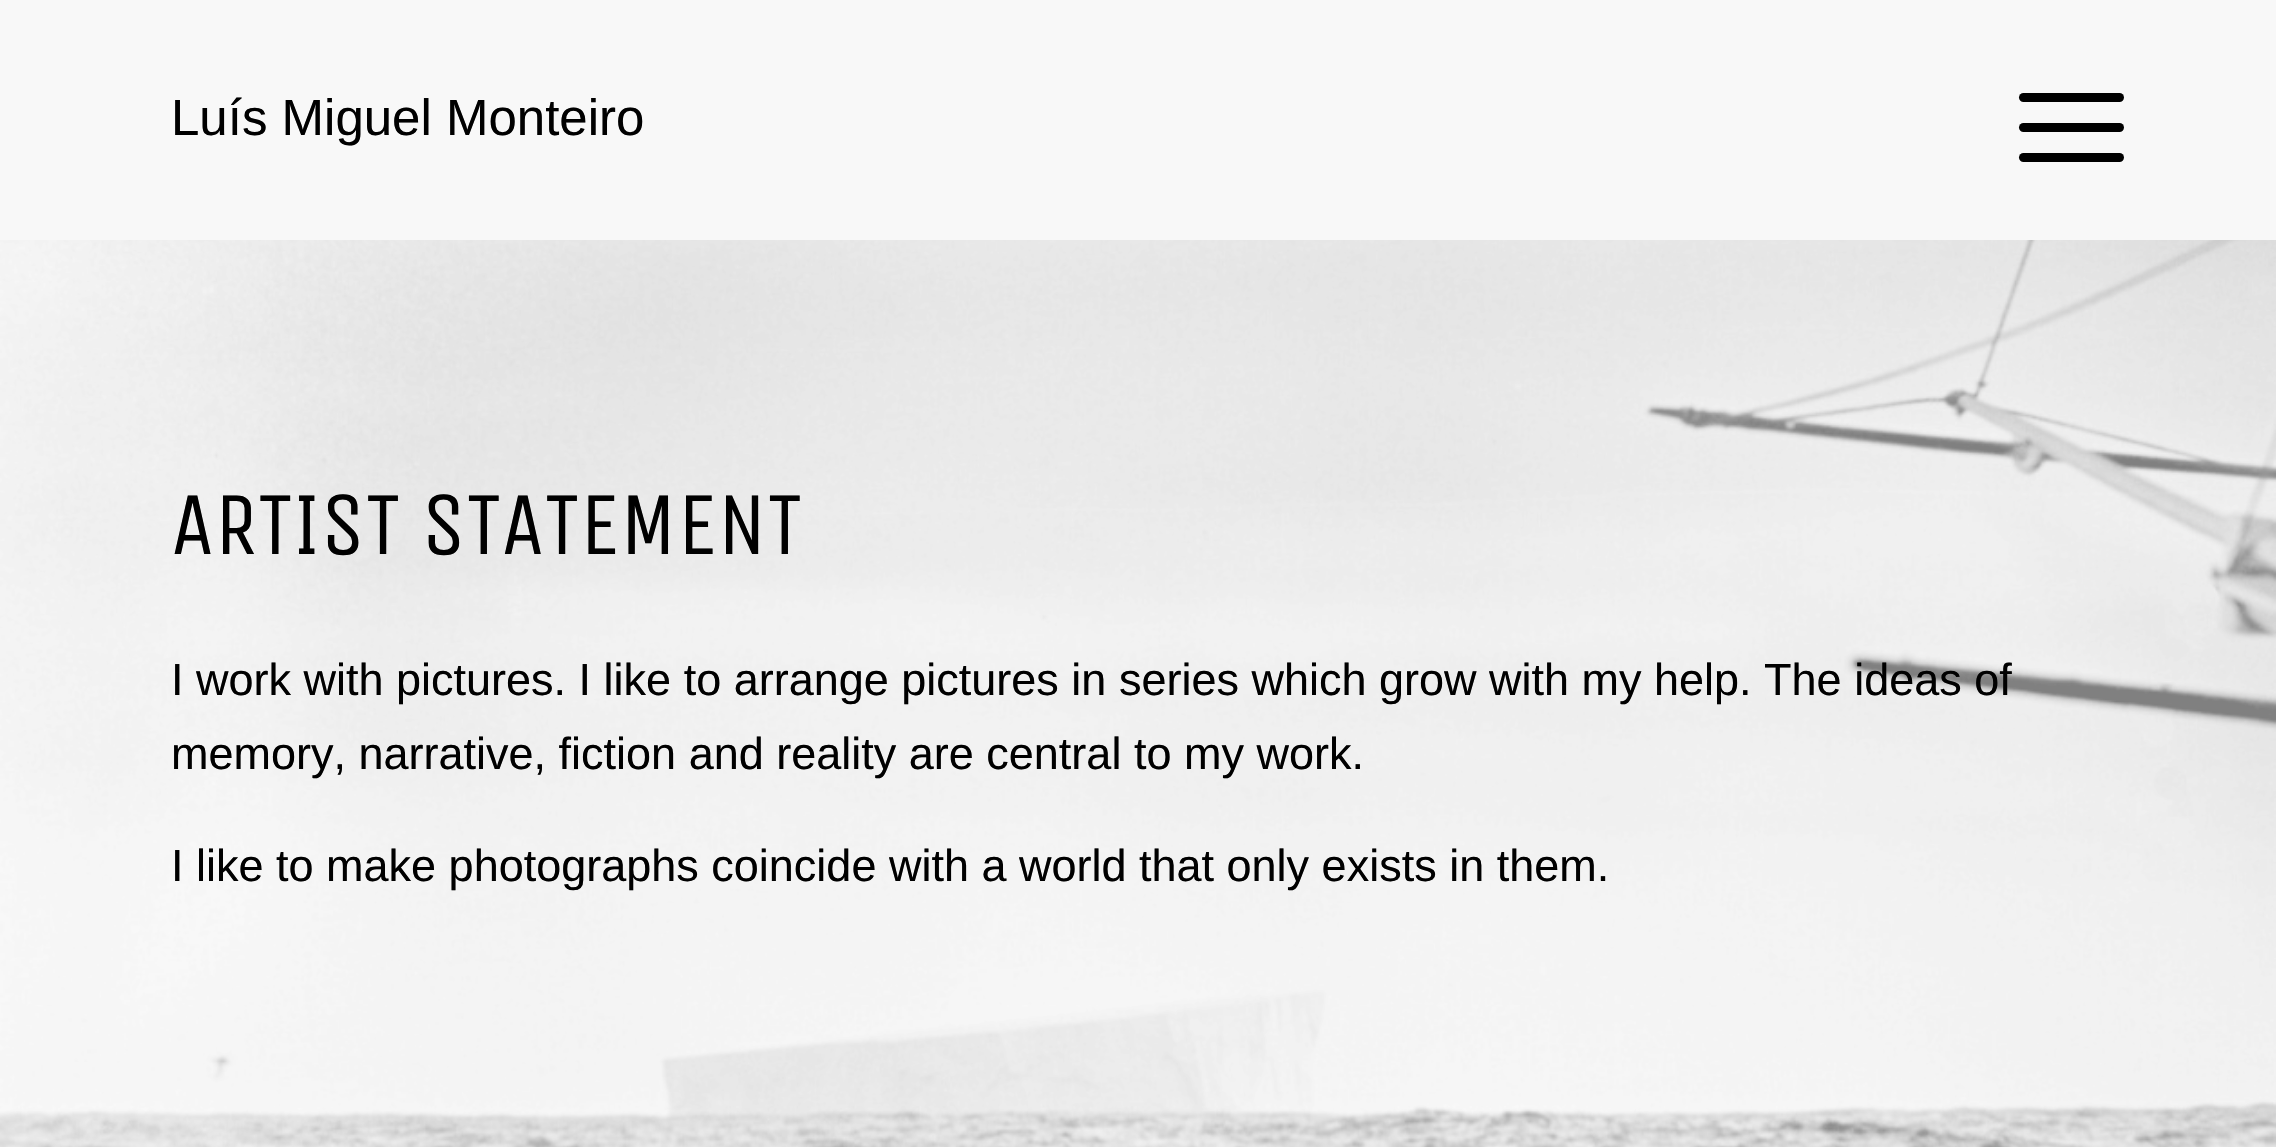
#include "include/core/SkBlurTypes.h"
#include "include/core/SkCanvas.h"
#include "include/core/SkData.h"
#include "include/core/SkFont.h"
#include "include/core/SkFontMgr.h"
#include "include/core/SkImage.h"
#include "include/core/SkMaskFilter.h"
#include "include/core/SkPaint.h"
#include "include/core/SkPathBuilder.h"
#include "include/core/SkTextBlob.h"
#include "include/effects/SkDashPathEffect.h"
#include "include/effects/SkGradientShader.h"
#include "include/utils/SkParsePath.h"

extern sk_sp<SkFontMgr> fontMgr;

void draw(SkCanvas* canvas) {
  SkPaint p;
  p.setAntiAlias(true);
  canvas->clear(SkColorSetRGB(248, 248, 248));
  p.setColor(SK_ColorBLACK);
  canvas->drawRoundRect(SkRect::MakeLTRB(2019, 123, 2124, 132), 4.5f, 4.5f, p);
  canvas->drawRoundRect(SkRect::MakeLTRB(2019, 93, 2124, 102), 4.5f, 4.5f, p);
  canvas->drawRoundRect(SkRect::MakeLTRB(2019, 153, 2124, 162), 4.5f, 4.5f, p);
  canvas->drawImageRect(SkImages::DeferredFromEncodedData(SkData::MakeFromFileName("images/1.png")), SkRect::MakeLTRB(0, 240, 2276, 1147), SkSamplingOptions());
  SkFont font1(fontMgr->matchFamilyStyle("Liberation Sans", SkFontStyle::Normal()), 51);
  font1.setSubpixel(true);
  canvas->drawString("Luís Miguel Monteiro", 171, 135, font1, p);
  SkFont font2(fontMgr->matchFamilyStyle("Unica One", SkFontStyle::Normal()), 90);
  font2.setSubpixel(true);
  canvas->drawString("ARTIST STATEMENT", 171, 554, font2, p);
  SkFont font3(fontMgr->matchFamilyStyle("Liberation Sans", SkFontStyle::Normal()), 45);
  font3.setSubpixel(true);
  canvas->drawString("I work with pictures. I like to arrange pictures in series which grow with my help. The ideas of", 171, 695, font3, p);
  canvas->drawString("memory, narrative, fiction and reality are central to my work.", 171, 769, font3, p);
  canvas->drawString("I like to make photographs coincide with a world that only exists in them.", 171, 881, font3, p);
}
